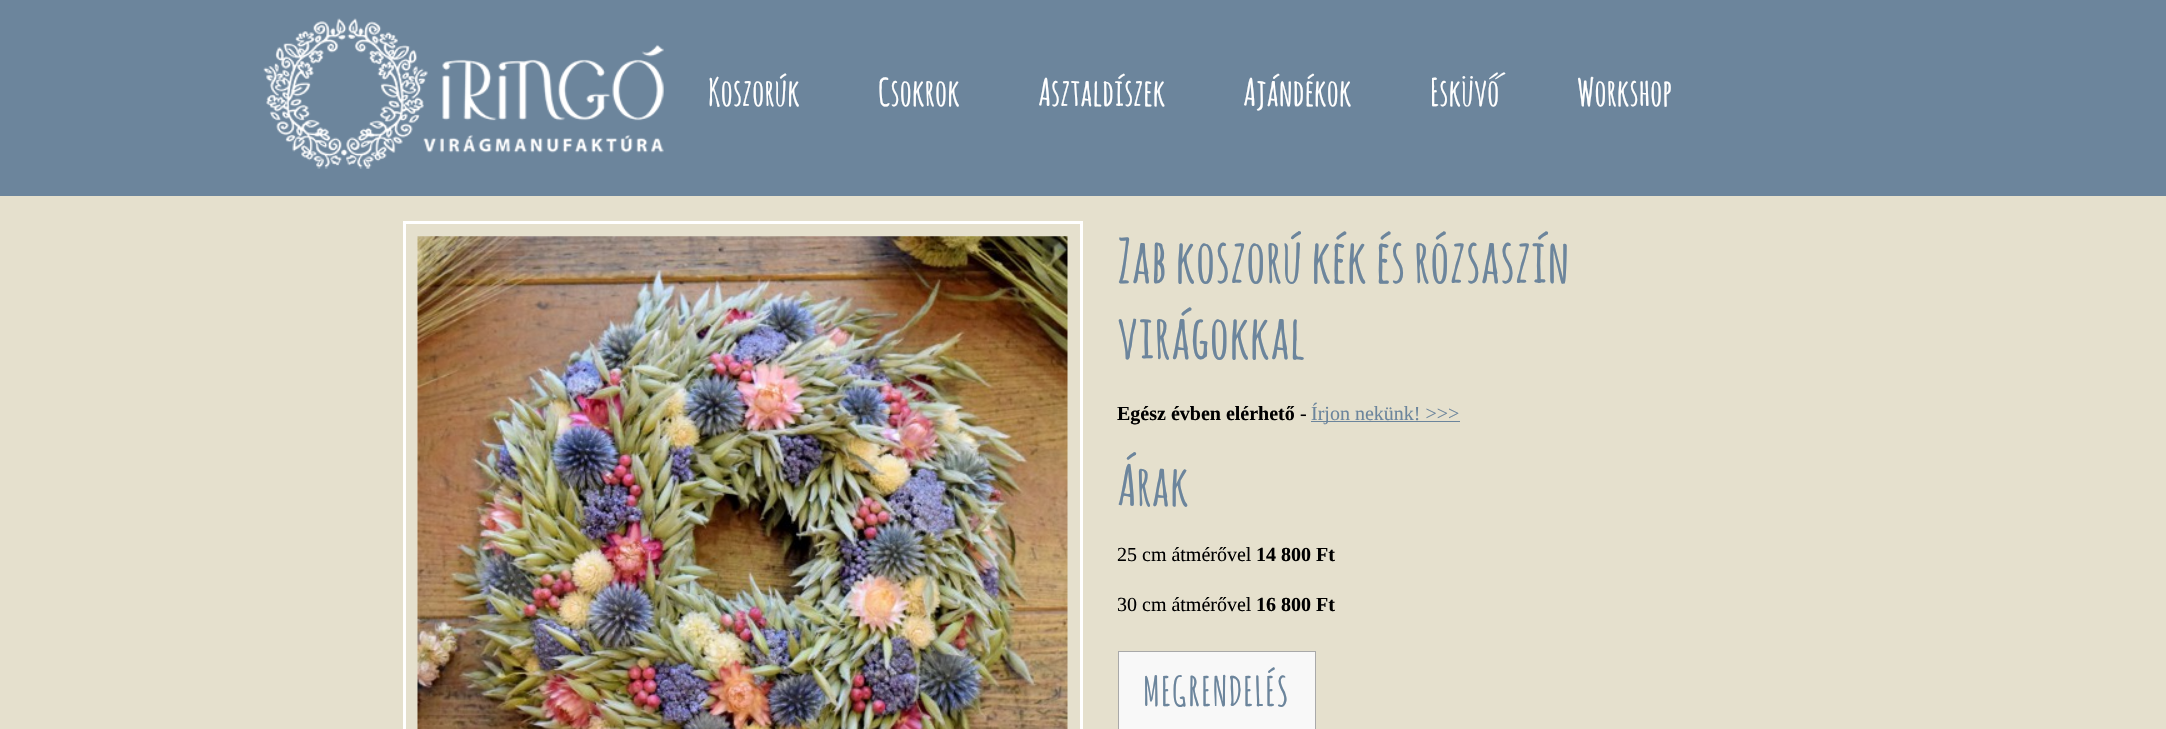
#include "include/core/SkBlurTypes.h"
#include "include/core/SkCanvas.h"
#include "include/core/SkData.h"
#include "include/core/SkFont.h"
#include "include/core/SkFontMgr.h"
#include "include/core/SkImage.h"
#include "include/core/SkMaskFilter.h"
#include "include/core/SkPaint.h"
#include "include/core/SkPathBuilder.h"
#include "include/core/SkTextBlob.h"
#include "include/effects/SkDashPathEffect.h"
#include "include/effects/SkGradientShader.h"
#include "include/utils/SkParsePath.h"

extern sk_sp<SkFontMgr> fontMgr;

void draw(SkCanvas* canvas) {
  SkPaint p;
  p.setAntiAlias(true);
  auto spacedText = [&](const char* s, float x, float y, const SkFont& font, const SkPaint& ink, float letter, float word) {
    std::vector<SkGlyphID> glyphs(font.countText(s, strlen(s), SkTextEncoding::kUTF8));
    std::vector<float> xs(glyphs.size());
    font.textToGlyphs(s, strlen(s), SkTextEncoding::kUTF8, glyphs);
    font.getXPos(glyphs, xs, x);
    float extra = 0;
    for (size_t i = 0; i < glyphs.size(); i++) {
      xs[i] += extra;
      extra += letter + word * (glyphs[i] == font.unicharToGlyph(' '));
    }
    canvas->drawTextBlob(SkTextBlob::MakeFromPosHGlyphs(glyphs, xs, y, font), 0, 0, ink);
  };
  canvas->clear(SkColorSetRGB(108, 133, 156));
  canvas->drawImageRect(SkImages::DeferredFromEncodedData(SkData::MakeFromFileName("images/1.png")), SkRect::MakeLTRB(263, 18, 664, 169), SkSamplingOptions());
  p.setColor(SkColorSetRGB(229, 224, 205));
  canvas->drawRect(SkRect::MakeLTRB(0, 196, 2166, 729), p);
  p.setStyle(SkPaint::kStroke_Style);
  p.setStrokeWidth(3);
  p.setColor(SK_ColorWHITE);
  canvas->drawRect(SkRect::MakeLTRB(404.5f, 222.5f, 1081.5f, 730.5f), p);
  canvas->drawImageRect(SkImages::DeferredFromEncodedData(SkData::MakeFromFileName("images/2.png")), SkRect::MakeLTRB(417, 236, 1068, 729), SkSamplingOptions());
  p.setStyle(SkPaint::kFill_Style);
  p.setColor(SkColorSetRGB(108, 133, 156));
  canvas->drawRect(SkRect::MakeLTRB(1311, 421, 1460, 422), p);
  p.setColor(SkColorSetRGB(248, 248, 248));
  canvas->drawRect(SkRect::MakeLTRB(1118.5f, 651.5f, 1315.5f, 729.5f), p);
  p.setStyle(SkPaint::kStroke_Style);
  p.setStrokeWidth(1);
  p.setColor(SkColorSetRGB(169, 169, 169));
  canvas->drawRect(SkRect::MakeLTRB(1118.5f, 651.5f, 1315.5f, 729.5f), p);
  SkFont font1(fontMgr->matchFamilyStyle("Amatic SC", SkFontStyle::Bold()), 37.5f);
  font1.setSubpixel(true);
  p.setStyle(SkPaint::kFill_Style);
  p.setColor(SK_ColorWHITE);
  canvas->drawString("Koszorúk", 708, 106, font1, p);
  canvas->drawString("Csokrok", 878, 106, font1, p);
  canvas->drawString("Asztaldíszek", 1038, 106, font1, p);
  canvas->drawString("Ajándékok", 1243, 106, font1, p);
  canvas->drawString("Esküvő", 1430, 106, font1, p);
  canvas->drawString("Workshop", 1577, 106, font1, p);
  SkFont font2(fontMgr->matchFamilyStyle("Amatic SC", SkFontStyle::Bold()), 60);
  font2.setSubpixel(true);
  p.setColor(SkColorSetRGB(108, 133, 156));
  canvas->drawString("Zab koszorú kék és rózsaszín", 1117, 283, font2, p);
  canvas->drawString("virágokkal", 1117, 359, font2, p);
  SkFont font3(fontMgr->matchFamilyStyle("Liberation Serif", SkFontStyle::Bold()), 20);
  font3.setSubpixel(true);
  p.setColor(SK_ColorBLACK);
  canvas->drawString("Egész évben elérhető", 1117, 420, font3, p);
  SkFont font4(fontMgr->matchFamilyStyle("Liberation Serif", SkFontStyle::Normal()), 20);
  font4.setSubpixel(true);
  canvas->drawString("-", 1300, 420, font4, p);
  p.setColor(SkColorSetRGB(108, 133, 156));
  canvas->drawString("Írjon nekünk! >>>", 1311, 420, font4, p);
  SkFont font5(fontMgr->matchFamilyStyle("Amatic SC", SkFontStyle::Bold()), 56);
  font5.setSubpixel(true);
  canvas->drawString("Árak", 1117, 506, font5, p);
  p.setColor(SK_ColorBLACK);
  canvas->drawString("25 cm átmérővel", 1117, 561, font4, p);
  canvas->drawString("14 800 Ft", 1256, 561, font3, p);
  canvas->drawString("30 cm átmérővel", 1117, 611, font4, p);
  canvas->drawString("16 800 Ft", 1256, 611, font3, p);
  SkFont font6(fontMgr->matchFamilyStyle("Amatic SC", SkFontStyle::Bold()), 40);
  font6.setSubpixel(true);
  p.setColor(SkColorSetRGB(108, 133, 156));
  spacedText("MEGRENDELÉS", 1143, 706, font6, p, 1.25f, 0);
}
